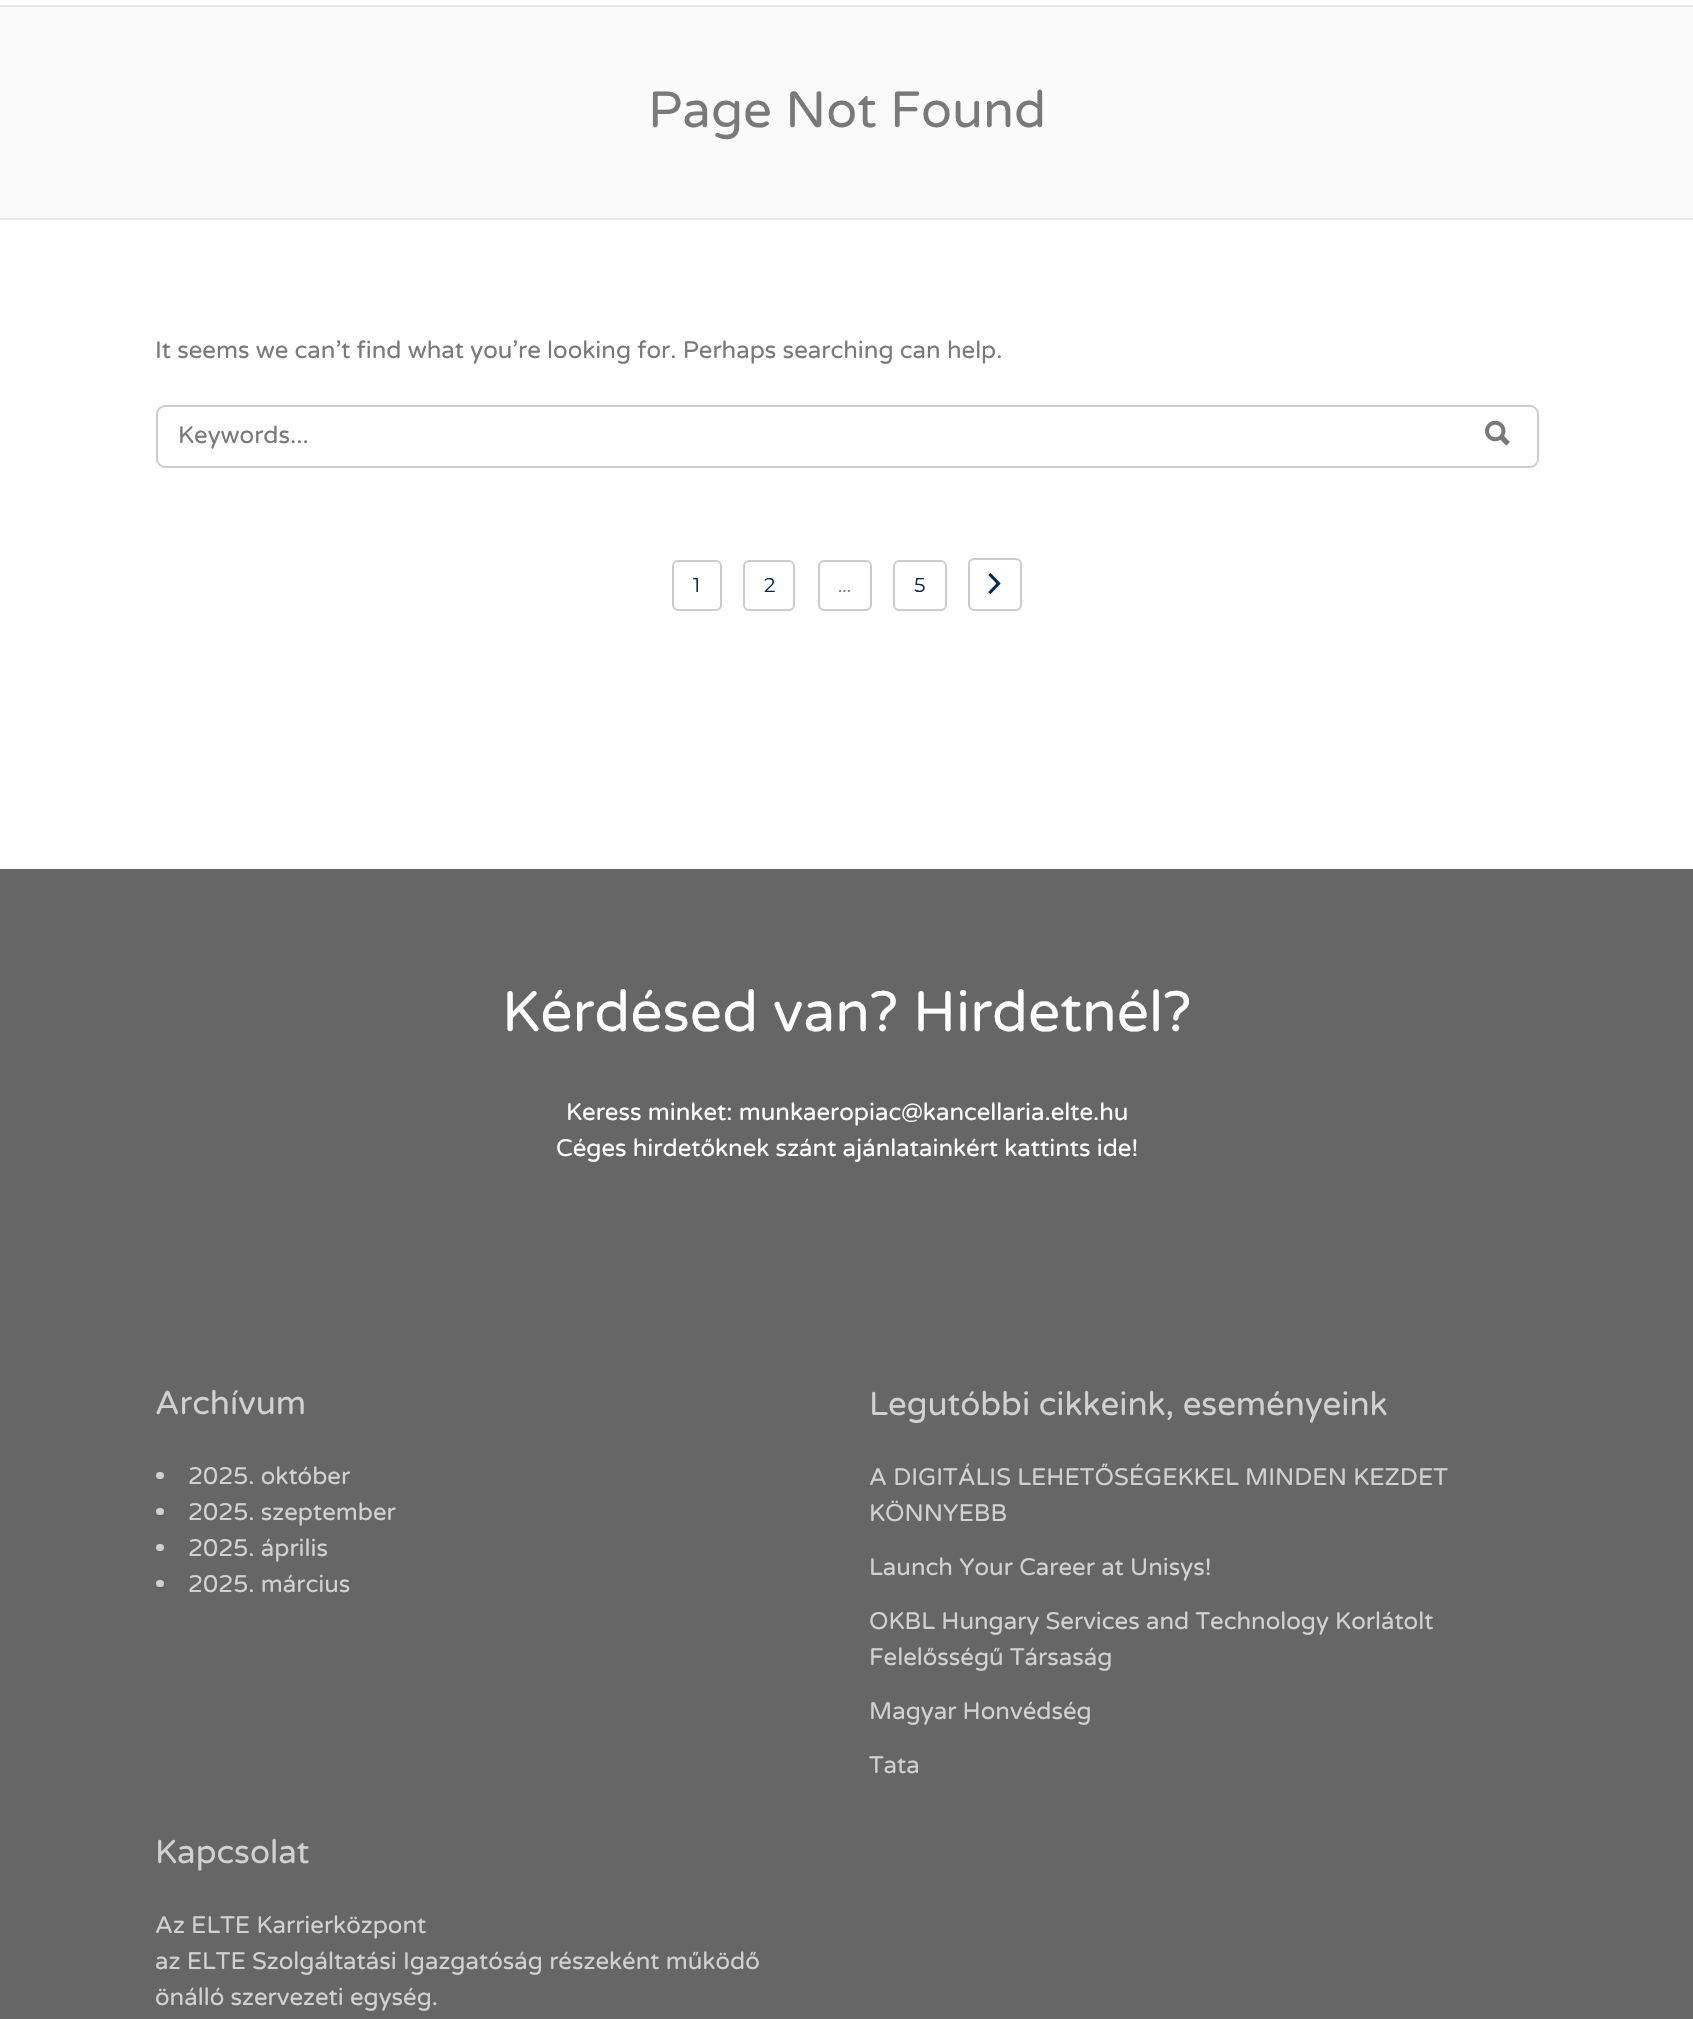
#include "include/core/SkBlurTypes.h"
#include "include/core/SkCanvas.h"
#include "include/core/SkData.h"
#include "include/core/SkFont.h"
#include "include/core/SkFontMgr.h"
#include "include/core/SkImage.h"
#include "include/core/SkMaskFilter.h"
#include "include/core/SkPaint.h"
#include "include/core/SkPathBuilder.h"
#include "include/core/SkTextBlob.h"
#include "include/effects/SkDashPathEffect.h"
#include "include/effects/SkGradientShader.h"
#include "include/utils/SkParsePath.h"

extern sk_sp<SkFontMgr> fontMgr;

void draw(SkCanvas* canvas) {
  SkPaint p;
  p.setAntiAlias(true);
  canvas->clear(SK_ColorWHITE);
  p.setColor(SkColorSetRGB(230, 230, 230));
  canvas->drawRect(SkRect::MakeLTRB(0, 5, 1693, 6), p);
  p.setColor(SkColorSetRGB(234, 234, 234));
  canvas->drawRect(SkRect::MakeLTRB(0, 219, 1693, 220), p);
  p.setColor(SkColorSetRGB(250, 250, 250));
  canvas->drawRect(SkRect::MakeLTRB(0, 7, 1693, 218), p);
  p.setColor(SkColorSetRGB(225, 225, 225));
  canvas->drawRect(SkRect::MakeLTRB(0, 6, 1693, 7), p);
  p.setColor(SkColorSetRGB(231, 231, 231));
  canvas->drawRect(SkRect::MakeLTRB(0, 218, 1693, 219), p);
  p.setStyle(SkPaint::kStroke_Style);
  p.setStrokeWidth(2);
  p.setColor(SkColorSetRGB(204, 204, 204));
  canvas->drawRoundRect(SkRect::MakeLTRB(157, 406, 1538, 467), 8, 8, p);
  canvas->drawImageRect(SkImages::DeferredFromEncodedData(SkData::MakeFromFileName("images/1.png")), SkRect::MakeLTRB(1485, 420, 1510, 446), SkSamplingOptions());
  canvas->drawRoundRect(SkRect::MakeLTRB(673, 561, 721, 610), 5, 5, p);
  canvas->drawRoundRect(SkRect::MakeLTRB(744, 561, 794, 610), 5, 5, p);
  canvas->drawRoundRect(SkRect::MakeLTRB(819, 561, 871, 610), 5, 5, p);
  canvas->drawRoundRect(SkRect::MakeLTRB(894, 561, 946, 610), 5, 5, p);
  canvas->drawRoundRect(SkRect::MakeLTRB(969, 559, 1021, 610), 5, 5, p);
  canvas->drawImageRect(SkImages::DeferredFromEncodedData(SkData::MakeFromFileName("images/2.png")), SkRect::MakeLTRB(988, 573, 1001, 594), SkSamplingOptions());
  p.setStyle(SkPaint::kFill_Style);
  p.setColor(SkColorSetRGB(102, 102, 102));
  canvas->drawRect(SkRect::MakeLTRB(0, 869, 1693, 2019), p);
  p.setColor(SkColorSetRGB(209, 209, 209));
  canvas->drawRoundRect(SkRect::MakeLTRB(156, 1472, 164, 1479), 3.5f, 3.5f, p);
  canvas->drawRoundRect(SkRect::MakeLTRB(156, 1508, 164, 1515), 3.5f, 3.5f, p);
  canvas->drawRoundRect(SkRect::MakeLTRB(156, 1544, 164, 1551), 3.5f, 3.5f, p);
  canvas->drawRoundRect(SkRect::MakeLTRB(156, 1580, 164, 1587), 3.5f, 3.5f, p);
  SkFont font1(fontMgr->matchFamilyStyle("Varela Round", SkFontStyle::Normal()), 51);
  font1.setSubpixel(true);
  p.setColor(SkColorSetRGB(121, 121, 121));
  canvas->drawString("Page Not Found", 648, 127, font1, p);
  SkFont font2(fontMgr->matchFamilyStyle("Varela Round", SkFontStyle::Normal()), 24);
  font2.setSubpixel(true);
  canvas->drawString("It seems we can’t find what you’re looking for. Perhaps searching can help.", 155, 358, font2, p);
  canvas->drawString("Keywords...", 178, 443, font2, p);
  SkFont font3(fontMgr->matchFamilyStyle("Montserrat", SkFontStyle::Normal()), 20);
  font3.setSubpixel(true);
  p.setColor(SkColorSetRGB(1, 40, 81));
  canvas->drawString("1", 693, 592, font3, p);
  canvas->drawString("2", 764, 592, font3, p);
  p.setColor(SkColorSetRGB(121, 121, 121));
  canvas->drawString("…", 838, 592, font3, p);
  p.setColor(SkColorSetRGB(1, 40, 81));
  canvas->drawString("5", 914, 592, font3, p);
  SkFont font4(fontMgr->matchFamilyStyle("Varela Round", SkFontStyle::Normal()), 57);
  font4.setSubpixel(true);
  p.setColor(SK_ColorWHITE);
  canvas->drawString("Kérdésed van? Hirdetnél?", 502, 1031, font4, p);
  canvas->drawString("Keress minket: munkaeropiac@kancellaria.elte.hu", 566, 1120, font2, p);
  canvas->drawString("Céges hirdetőknek szánt ajánlatainkért kattints ide!", 556, 1156, font2, p);
  SkFont font5(fontMgr->matchFamilyStyle("Varela Round", SkFontStyle::Normal()), 33);
  font5.setSubpixel(true);
  p.setColor(SkColorSetRGB(209, 209, 209));
  canvas->drawString("Archívum", 155, 1414, font5, p);
  canvas->drawString("2025. október", 188, 1484, font2, p);
  canvas->drawString("2025. szeptember", 188, 1520, font2, p);
  canvas->drawString("2025. április", 188, 1556, font2, p);
  canvas->drawString("2025. március", 188, 1592, font2, p);
  canvas->drawString("Legutóbbi cikkeink, eseményeink", 869, 1415, font5, p);
  canvas->drawString("A DIGITÁLIS LEHETŐSÉGEKKEL MINDEN KEZDET", 869, 1485, font2, p);
  canvas->drawString("KÖNNYEBB", 869, 1521, font2, p);
  canvas->drawString("Launch Your Career at Unisys!", 869, 1575, font2, p);
  canvas->drawString("OKBL Hungary Services and Technology Korlátolt", 869, 1629, font2, p);
  canvas->drawString("Felelősségű Társaság", 869, 1665, font2, p);
  canvas->drawString("Magyar Honvédség", 869, 1719, font2, p);
  canvas->drawString("Tata", 869, 1773, font2, p);
  canvas->drawString("Kapcsolat", 155, 1863, font5, p);
  canvas->drawString("Az ELTE Karrierközpont", 155, 1933, font2, p);
  canvas->drawString("az ELTE Szolgáltatási Igazgatóság részeként működő", 155, 1969, font2, p);
  canvas->drawString("önálló szervezeti egység.", 155, 2005, font2, p);
}
